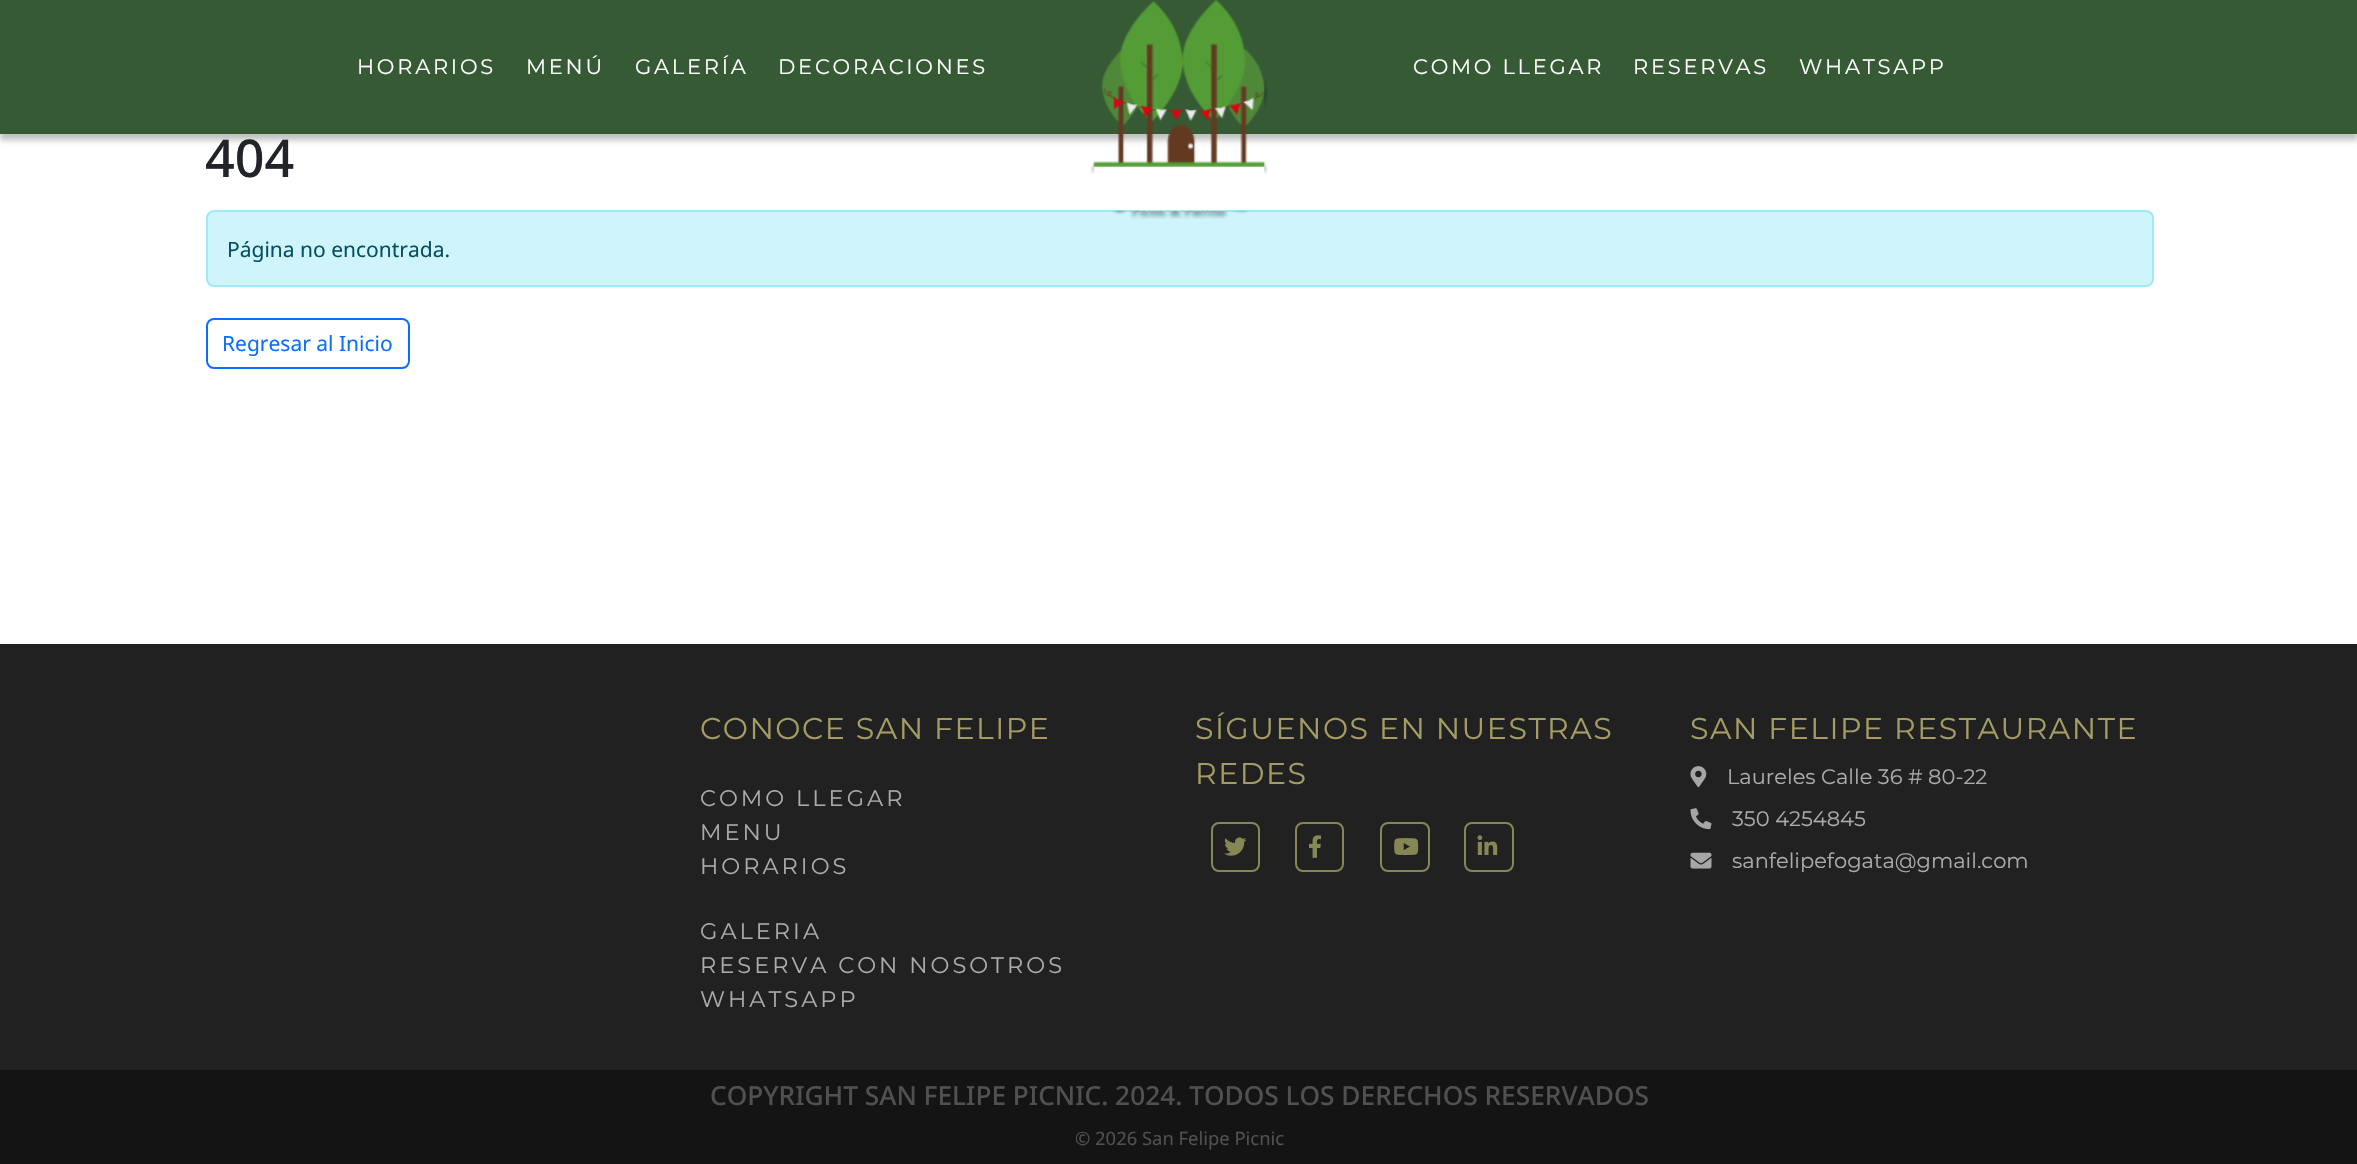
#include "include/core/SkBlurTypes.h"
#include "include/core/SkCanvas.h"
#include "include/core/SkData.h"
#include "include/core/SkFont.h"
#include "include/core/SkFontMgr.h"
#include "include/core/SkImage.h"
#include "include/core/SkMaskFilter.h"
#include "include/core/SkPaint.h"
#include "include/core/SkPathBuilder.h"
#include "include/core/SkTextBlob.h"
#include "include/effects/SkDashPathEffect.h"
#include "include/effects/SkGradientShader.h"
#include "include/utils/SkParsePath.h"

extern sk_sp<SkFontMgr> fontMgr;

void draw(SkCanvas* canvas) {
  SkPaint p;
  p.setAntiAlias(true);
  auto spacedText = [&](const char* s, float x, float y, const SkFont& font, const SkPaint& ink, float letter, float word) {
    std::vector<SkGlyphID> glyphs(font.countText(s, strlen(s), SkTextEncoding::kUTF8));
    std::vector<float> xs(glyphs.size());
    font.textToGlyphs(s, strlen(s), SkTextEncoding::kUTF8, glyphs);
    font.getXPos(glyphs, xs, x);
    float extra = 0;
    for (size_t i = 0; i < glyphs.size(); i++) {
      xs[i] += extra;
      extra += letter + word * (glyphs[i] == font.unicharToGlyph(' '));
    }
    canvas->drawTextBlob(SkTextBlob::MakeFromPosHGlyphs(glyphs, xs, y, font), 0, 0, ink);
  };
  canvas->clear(SK_ColorWHITE);
  p.setColor(SkColorSetARGB(64, 0, 0, 0));
  p.setMaskFilter(SkMaskFilter::MakeBlur(kNormal_SkBlurStyle, 3));
  canvas->drawRect(SkRect::MakeLTRB(0, 6, 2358, 140), p);
  p.setMaskFilter(nullptr);
  p.setColor(SkColorSetRGB(53, 90, 52));
  canvas->drawRect(SkRect::MakeLTRB(0, 0, 2357, 134), p);
  p.setColor(SkColorSetRGB(207, 244, 252));
  canvas->drawRoundRect(SkRect::MakeLTRB(207, 211, 2153, 286), 7, 7, p);
  p.setStyle(SkPaint::kStroke_Style);
  p.setStrokeWidth(2);
  p.setColor(SkColorSetRGB(158, 234, 249));
  canvas->drawRoundRect(SkRect::MakeLTRB(207, 211, 2153, 286), 7, 7, p);
  canvas->drawImageRect(SkImages::DeferredFromEncodedData(SkData::MakeFromFileName("images/1.png")), SkRect::MakeLTRB(1090, 0, 1268, 219), SkSamplingOptions());
  p.setColor(SkColorSetRGB(13, 110, 253));
  canvas->drawRoundRect(SkRect::MakeLTRB(207, 319, 409, 368), 7, 7, p);
  p.setStyle(SkPaint::kFill_Style);
  p.setColor(SkColorSetRGB(20, 20, 20));
  canvas->drawRect(SkRect::MakeLTRB(0, 1070, 2357, 1164), p);
  p.setColor(SkColorSetRGB(33, 33, 33));
  canvas->drawRect(SkRect::MakeLTRB(0, 644, 2357, 1070), p);
  p.setStyle(SkPaint::kStroke_Style);
  p.setColor(SkColorSetRGB(135, 135, 85));
  canvas->drawRoundRect(SkRect::MakeLTRB(1212, 823, 1259, 871), 7, 7, p);
  canvas->drawImageRect(SkImages::DeferredFromEncodedData(SkData::MakeFromFileName("images/2.png")), SkRect::MakeLTRB(1224, 837, 1247, 856), SkSamplingOptions());
  canvas->drawRoundRect(SkRect::MakeLTRB(1296, 823, 1343, 871), 7, 7, p);
  canvas->drawImageRect(SkImages::DeferredFromEncodedData(SkData::MakeFromFileName("images/3.png")), SkRect::MakeLTRB(1309, 835, 1322, 858), SkSamplingOptions());
  canvas->drawRoundRect(SkRect::MakeLTRB(1381, 823, 1429, 871), 7, 7, p);
  canvas->drawImageRect(SkImages::DeferredFromEncodedData(SkData::MakeFromFileName("images/4.png")), SkRect::MakeLTRB(1394, 838, 1419, 855), SkSamplingOptions());
  canvas->drawRoundRect(SkRect::MakeLTRB(1465, 823, 1513, 871), 7, 7, p);
  canvas->drawImageRect(SkImages::DeferredFromEncodedData(SkData::MakeFromFileName("images/5.png")), SkRect::MakeLTRB(1477, 835, 1498, 855), SkSamplingOptions());
  canvas->drawImageRect(SkImages::DeferredFromEncodedData(SkData::MakeFromFileName("images/6.png")), SkRect::MakeLTRB(1690, 766, 1707, 788), SkSamplingOptions());
  canvas->drawImageRect(SkImages::DeferredFromEncodedData(SkData::MakeFromFileName("images/7.png")), SkRect::MakeLTRB(1690, 808, 1712, 830), SkSamplingOptions());
  canvas->drawImageRect(SkImages::DeferredFromEncodedData(SkData::MakeFromFileName("images/8.png")), SkRect::MakeLTRB(1690, 852, 1712, 869), SkSamplingOptions());
  SkFont font1(fontMgr->matchFamilyStyle("Montserrat", SkFontStyle(100, SkFontStyle::kNormal_Width, SkFontStyle::kUpright_Slant)), 21);
  font1.setSubpixel(true);
  p.setStyle(SkPaint::kFill_Style);
  p.setColor(SK_ColorWHITE);
  spacedText("HORARIOS", 357, 74, font1, p, 2.75f, 0);
  spacedText("MENÚ", 526, 74, font1, p, 2.75f, 0);
  spacedText("GALERÍA", 635, 74, font1, p, 2.75f, 0);
  spacedText("DECORACIONES", 778, 74, font1, p, 2.75f, 0);
  spacedText("COMO LLEGAR", 1413, 74, font1, p, 2.75f, 0);
  spacedText("RESERVAS", 1633, 74, font1, p, 2.75f, 0);
  spacedText("WHATSAPP", 1799, 74, font1, p, 2.75f, 0);
  SkFont font2(fontMgr->matchFamilyStyle("Noto Sans", SkFontStyle(500, SkFontStyle::kNormal_Width, SkFontStyle::kUpright_Slant)), 52);
  font2.setSubpixel(true);
  p.setColor(SkColorSetRGB(33, 37, 41));
  canvas->drawString("404", 205, 177, font2, p);
  SkFont font3(fontMgr->matchFamilyStyle("Noto Sans", SkFontStyle::Normal()), 21);
  font3.setSubpixel(true);
  p.setColor(SkColorSetRGB(5, 81, 96));
  canvas->drawString("Página no encontrada.", 227, 257, font3, p);
  p.setColor(SkColorSetRGB(13, 110, 253));
  canvas->drawString("Regresar al Inicio", 222, 351, font3, p);
  SkFont font4(fontMgr->matchFamilyStyle("Montserrat", SkFontStyle(100, SkFontStyle::kNormal_Width, SkFontStyle::kUpright_Slant)), 30);
  font4.setSubpixel(true);
  p.setColor(SkColorSetRGB(163, 156, 100));
  spacedText("CONOCE SAN FELIPE", 700, 739, font4, p, 1.5f, 0);
  SkFont font5(fontMgr->matchFamilyStyle("Montserrat", SkFontStyle(100, SkFontStyle::kNormal_Width, SkFontStyle::kUpright_Slant)), 22.5f);
  font5.setSubpixel(true);
  p.setColor(SkColorSetRGB(171, 171, 171));
  spacedText("COMO LLEGAR", 700, 806, font5, p, 3, 0);
  spacedText("MENU", 700, 840, font5, p, 3, 0);
  spacedText("HORARIOS", 700, 874, font5, p, 3, 0);
  spacedText("GALERIA", 700, 939, font5, p, 3, 0);
  spacedText("RESERVA CON NOSOTROS", 700, 973, font5, p, 3, 0);
  spacedText("WHATSAPP", 700, 1007, font5, p, 3, 0);
  p.setColor(SkColorSetRGB(163, 156, 100));
  spacedText("SÍGUENOS EN NUESTRAS", 1195, 739, font4, p, 1.5f, 0);
  spacedText("REDES", 1195, 784, font4, p, 1.5f, 0);
  spacedText("SAN FELIPE RESTAURANTE", 1690, 739, font4, p, 1.5f, 0);
  p.setColor(SkColorSetRGB(171, 171, 171));
  canvas->drawString("Laureles Calle 36 # 80-22", 1727, 784, font1, p);
  canvas->drawString("350 4254845", 1732, 826, font1, p);
  canvas->drawString("sanfelipefogata@gmail.com", 1732, 868, font1, p);
  SkFont font6(fontMgr->matchFamilyStyle("Noto Sans", SkFontStyle(500, SkFontStyle::kNormal_Width, SkFontStyle::kUpright_Slant)), 26.25f);
  font6.setSubpixel(true);
  p.setColor(SkColorSetRGB(80, 80, 80));
  canvas->drawString("COPYRIGHT SAN FELIPE PICNIC. 2024. TODOS LOS DERECHOS RESERVADOS", 710, 1105, font6, p);
  SkFont font7(fontMgr->matchFamilyStyle("Noto Sans", SkFontStyle::Normal()), 18.4f);
  font7.setSubpixel(true);
  canvas->drawString("© 2026 San Felipe Picnic", 1075, 1145, font7, p);
}
